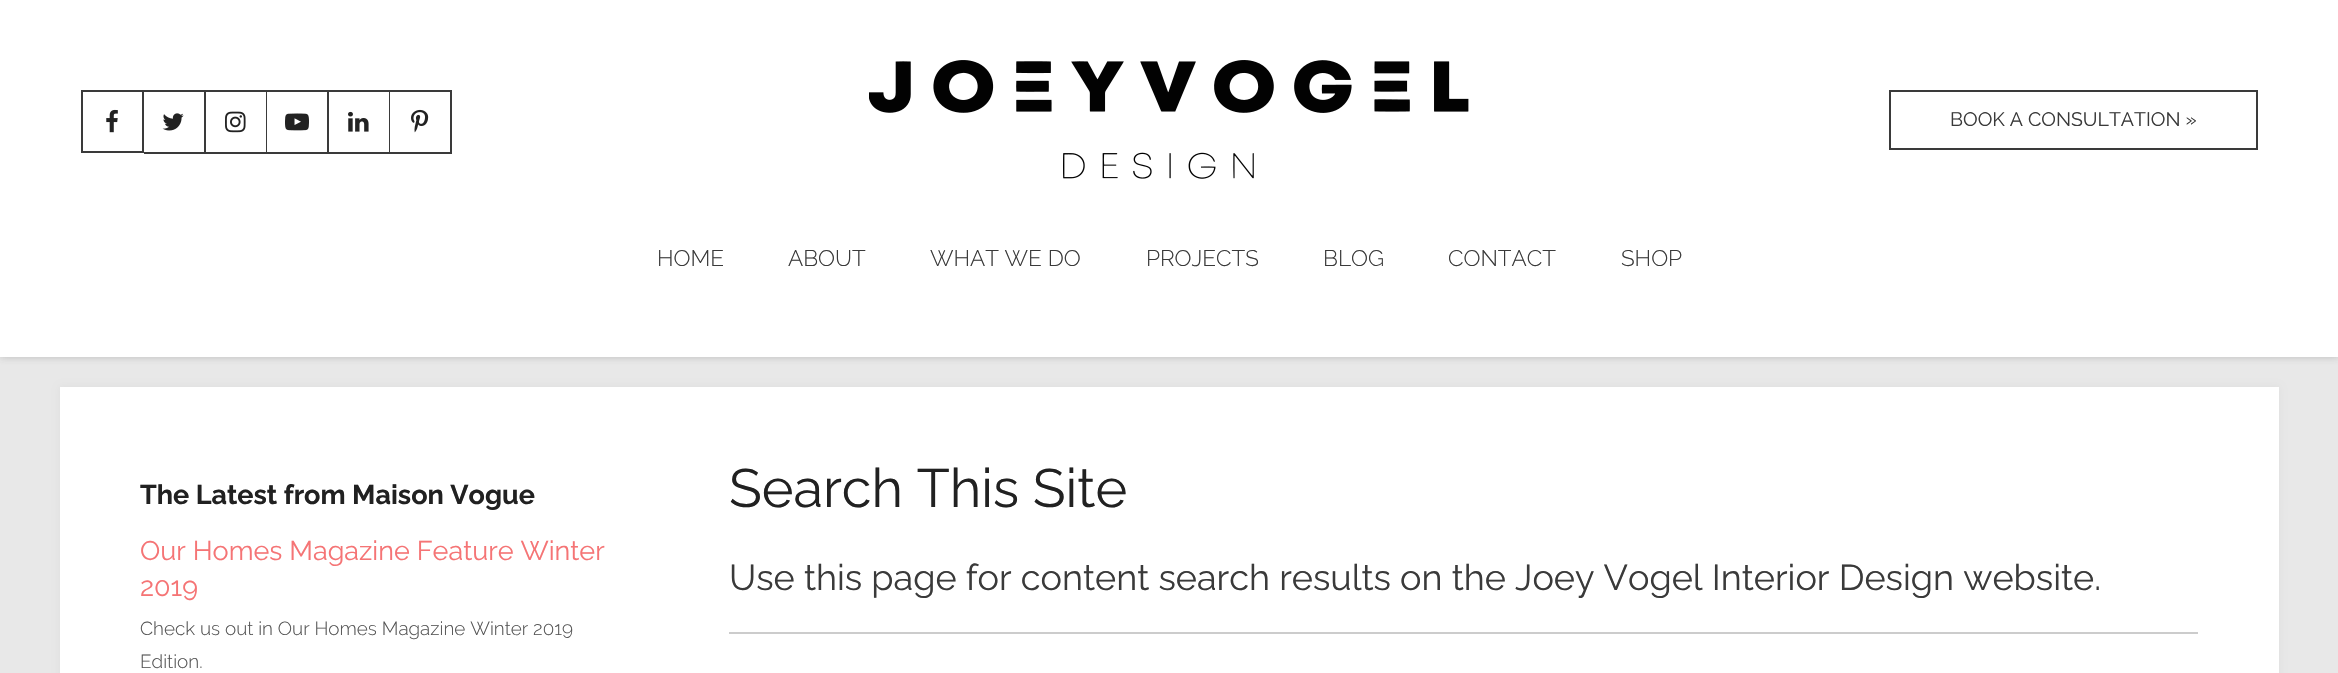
#include "include/core/SkBlurTypes.h"
#include "include/core/SkCanvas.h"
#include "include/core/SkData.h"
#include "include/core/SkFont.h"
#include "include/core/SkFontMgr.h"
#include "include/core/SkImage.h"
#include "include/core/SkMaskFilter.h"
#include "include/core/SkPaint.h"
#include "include/core/SkPathBuilder.h"
#include "include/core/SkTextBlob.h"
#include "include/effects/SkDashPathEffect.h"
#include "include/effects/SkGradientShader.h"
#include "include/utils/SkParsePath.h"

extern sk_sp<SkFontMgr> fontMgr;

void draw(SkCanvas* canvas) {
  SkPaint p;
  p.setAntiAlias(true);
  canvas->clear(SkColorSetRGB(232, 232, 232));
  p.setColor(SkColorSetARGB(64, 51, 51, 51));
  p.setMaskFilter(SkMaskFilter::MakeBlur(kNormal_SkBlurStyle, 4));
  canvas->drawRect(SkRect::MakeLTRB(0, 0, 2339, 357), p);
  p.setMaskFilter(nullptr);
  p.setColor(SK_ColorWHITE);
  canvas->drawRect(SkRect::MakeLTRB(0, 0, 2338, 357), p);
  p.setStyle(SkPaint::kStroke_Style);
  p.setStrokeWidth(2);
  p.setColor(SkColorSetRGB(58, 58, 58));
  canvas->drawRect(SkRect::MakeLTRB(82, 91, 143, 152), p);
  canvas->drawImageRect(SkImages::DeferredFromEncodedData(SkData::MakeFromFileName("images/1.png")), SkRect::MakeLTRB(106, 109, 118, 133), SkSamplingOptions());
  p.setStyle(SkPaint::kFill_Style);
  canvas->drawRect(SkRect::MakeLTRB(144, 90, 452, 92), p);
  canvas->drawRect(SkRect::MakeLTRB(204, 90, 206, 153), p);
  canvas->drawRect(SkRect::MakeLTRB(144, 152, 206, 154), p);
  canvas->drawImageRect(SkImages::DeferredFromEncodedData(SkData::MakeFromFileName("images/2.png")), SkRect::MakeLTRB(162, 113, 184, 131), SkSamplingOptions());
  canvas->drawRect(SkRect::MakeLTRB(266, 90, 267, 153), p);
  canvas->drawRect(SkRect::MakeLTRB(206, 152, 267, 154), p);
  canvas->drawImageRect(SkImages::DeferredFromEncodedData(SkData::MakeFromFileName("images/3.png")), SkRect::MakeLTRB(225, 111, 246, 133), SkSamplingOptions());
  canvas->drawRect(SkRect::MakeLTRB(327, 90, 329, 153), p);
  canvas->drawRect(SkRect::MakeLTRB(267, 152, 329, 154), p);
  canvas->drawImageRect(SkImages::DeferredFromEncodedData(SkData::MakeFromFileName("images/4.png")), SkRect::MakeLTRB(285, 113, 309, 131), SkSamplingOptions());
  canvas->drawRect(SkRect::MakeLTRB(389, 90, 390, 153), p);
  canvas->drawRect(SkRect::MakeLTRB(329, 152, 390, 154), p);
  canvas->drawImageRect(SkImages::DeferredFromEncodedData(SkData::MakeFromFileName("images/5.png")), SkRect::MakeLTRB(348, 111, 369, 132), SkSamplingOptions());
  canvas->drawRect(SkRect::MakeLTRB(450, 90, 452, 153), p);
  canvas->drawRect(SkRect::MakeLTRB(390, 152, 452, 154), p);
  canvas->drawImageRect(SkImages::DeferredFromEncodedData(SkData::MakeFromFileName("images/6.png")), SkRect::MakeLTRB(411, 109, 429, 133), SkSamplingOptions());
  canvas->drawImageRect(SkImages::DeferredFromEncodedData(SkData::MakeFromFileName("images/7.png")), SkRect::MakeLTRB(869, 60, 1469, 179), SkSamplingOptions());
  p.setStyle(SkPaint::kStroke_Style);
  canvas->drawRect(SkRect::MakeLTRB(1890, 91, 2257, 149), p);
  p.setStyle(SkPaint::kFill_Style);
  p.setColor(SkColorSetRGB(221, 221, 221));
  p.setMaskFilter(SkMaskFilter::MakeBlur(kNormal_SkBlurStyle, 4));
  canvas->drawRect(SkRect::MakeLTRB(60, 387, 2279, 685), p);
  p.setMaskFilter(nullptr);
  p.setColor(SK_ColorWHITE);
  canvas->drawRect(SkRect::MakeLTRB(60, 387, 2279, 673), p);
  p.setColor(SkColorSetRGB(204, 204, 204));
  canvas->drawRect(SkRect::MakeLTRB(729, 632, 2198, 634), p);
  SkFont font1(fontMgr->matchFamilyStyle("Raleway", SkFontStyle::Normal()), 19.5f);
  font1.setSubpixel(true);
  p.setColor(SkColorSetRGB(58, 58, 58));
  canvas->drawString("BOOK A CONSULTATION »", 1950, 126, font1, p);
  SkFont font2(fontMgr->matchFamilyStyle("Raleway", SkFontStyle(300, SkFontStyle::kNormal_Width, SkFontStyle::kUpright_Slant)), 22.5f);
  font2.setSubpixel(true);
  canvas->drawString("HOME", 657, 266, font2, p);
  canvas->drawString("ABOUT", 788, 266, font2, p);
  canvas->drawString("WHAT WE DO", 930, 266, font2, p);
  canvas->drawString("PROJECTS", 1146, 266, font2, p);
  canvas->drawString("BLOG", 1323, 266, font2, p);
  canvas->drawString("CONTACT", 1448, 266, font2, p);
  canvas->drawString("SHOP", 1621, 266, font2, p);
  SkFont font3(fontMgr->matchFamilyStyle("Raleway", SkFontStyle::Bold()), 27);
  font3.setSubpixel(true);
  p.setColor(SkColorSetRGB(33, 33, 33));
  canvas->drawString("The Latest from Maison Vogue", 140, 504, font3, p);
  SkFont font4(fontMgr->matchFamilyStyle("Raleway", SkFontStyle::Normal()), 27);
  font4.setSubpixel(true);
  p.setColor(SkColorSetRGB(245, 116, 117));
  canvas->drawString("Our Homes Magazine Feature Winter", 140, 560, font4, p);
  canvas->drawString("2019", 140, 596, font4, p);
  SkFont font5(fontMgr->matchFamilyStyle("Raleway", SkFontStyle(300, SkFontStyle::kNormal_Width, SkFontStyle::kUpright_Slant)), 18.9f);
  font5.setSubpixel(true);
  p.setColor(SkColorSetRGB(85, 85, 85));
  canvas->drawString("Check us out in Our Homes Magazine Winter 2019", 140, 635, font5, p);
  canvas->drawString("Edition.", 140, 668, font5, p);
  SkFont font6(fontMgr->matchFamilyStyle("Raleway", SkFontStyle::Normal()), 54);
  font6.setSubpixel(true);
  p.setColor(SkColorSetRGB(33, 33, 33));
  canvas->drawString("Search This Site", 729, 507, font6, p);
  SkFont font7(fontMgr->matchFamilyStyle("Raleway", SkFontStyle::Normal()), 36);
  font7.setSubpixel(true);
  p.setColor(SkColorSetRGB(58, 58, 58));
  canvas->drawString("Use this page for content search results on the Joey Vogel Interior Design website.", 729, 590, font7, p);
}
